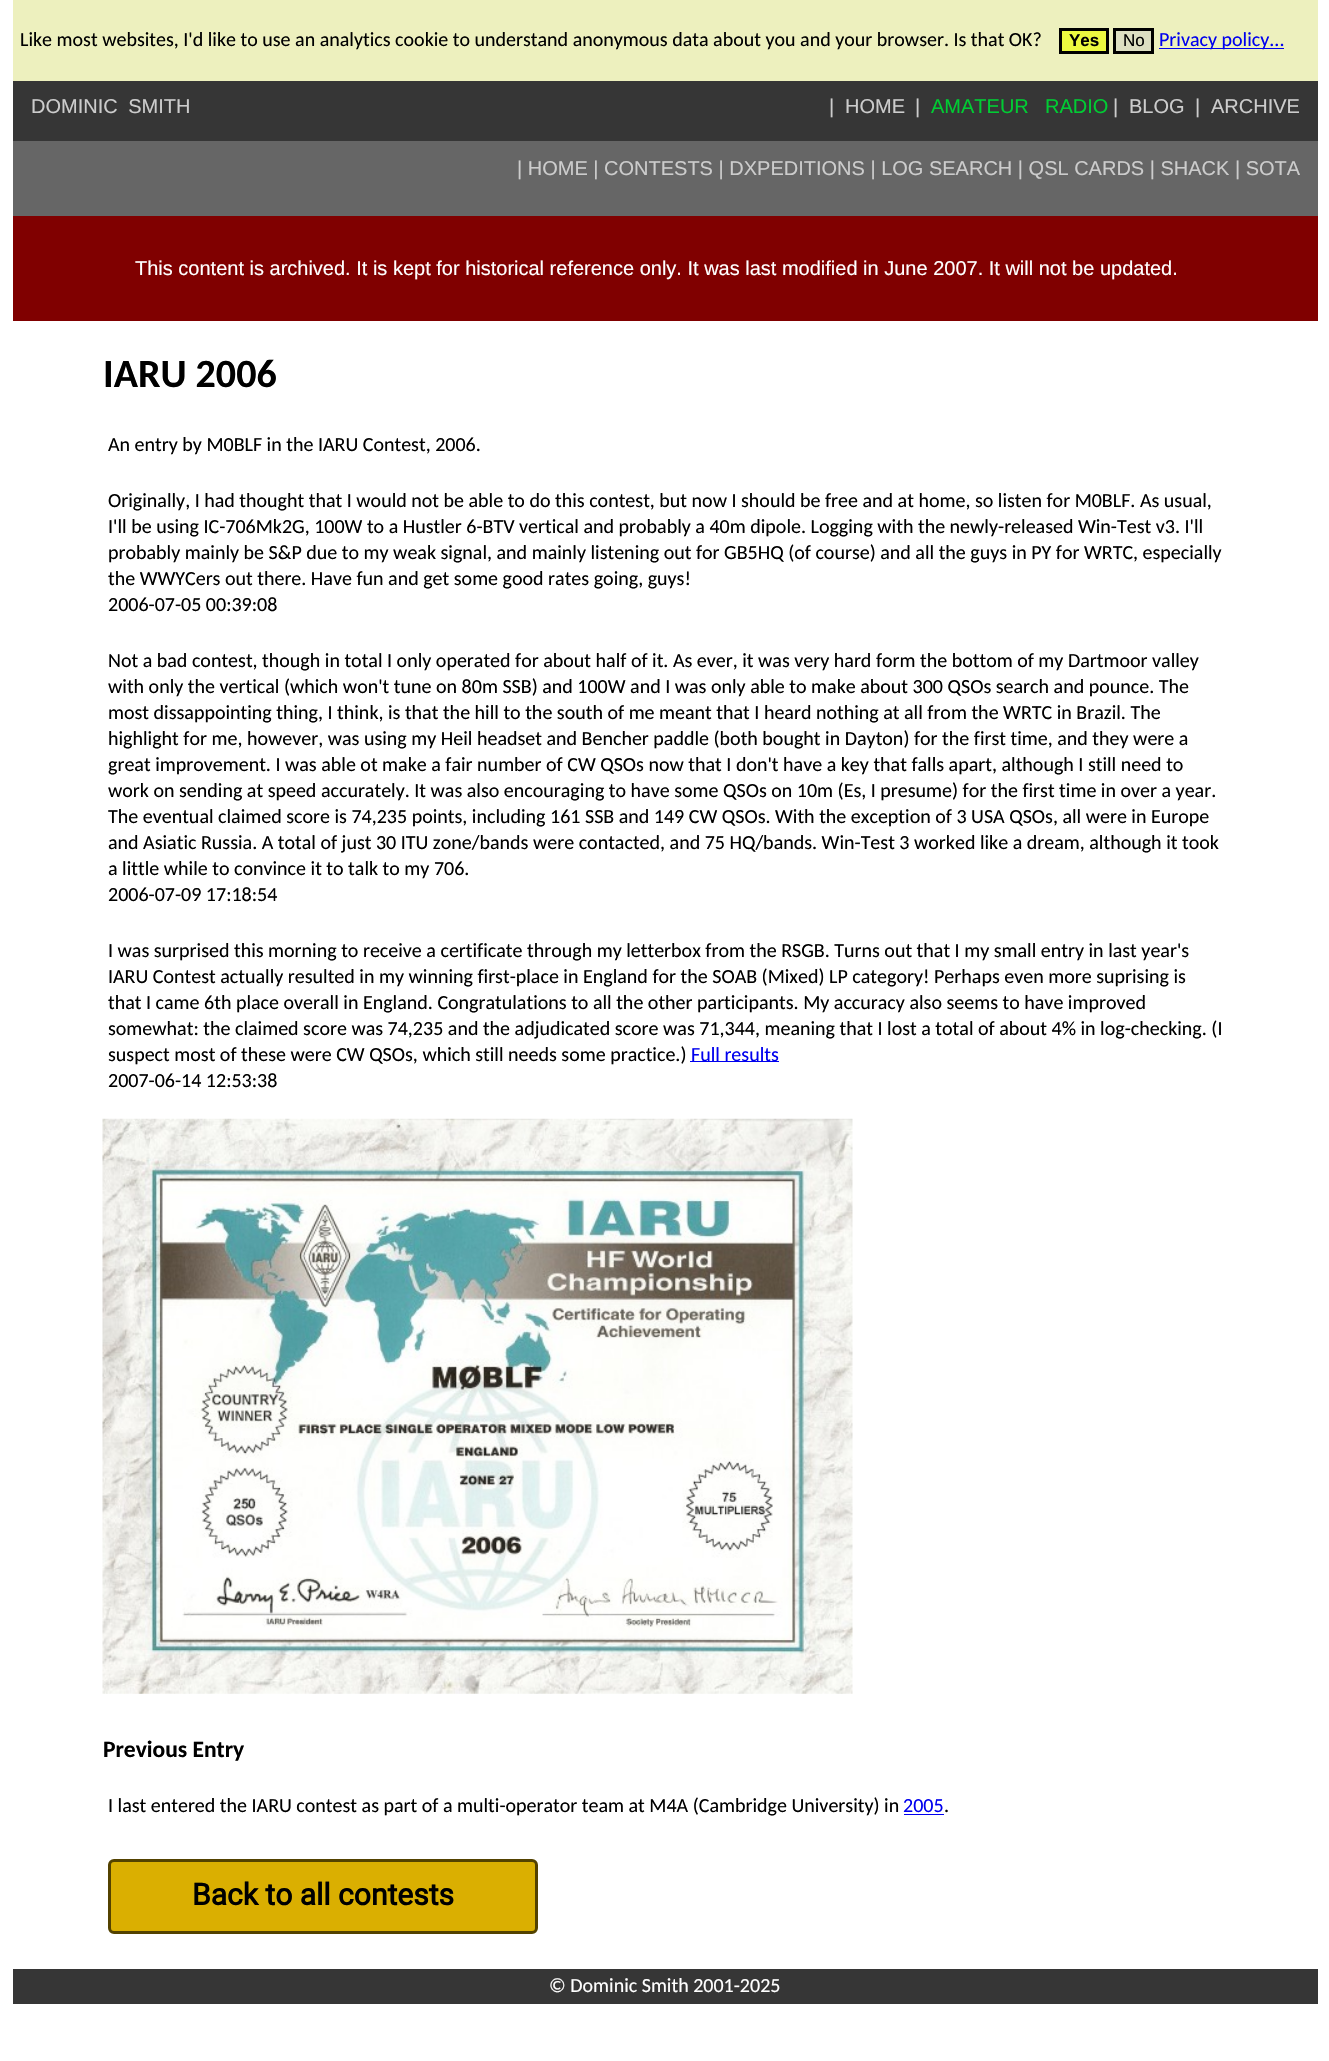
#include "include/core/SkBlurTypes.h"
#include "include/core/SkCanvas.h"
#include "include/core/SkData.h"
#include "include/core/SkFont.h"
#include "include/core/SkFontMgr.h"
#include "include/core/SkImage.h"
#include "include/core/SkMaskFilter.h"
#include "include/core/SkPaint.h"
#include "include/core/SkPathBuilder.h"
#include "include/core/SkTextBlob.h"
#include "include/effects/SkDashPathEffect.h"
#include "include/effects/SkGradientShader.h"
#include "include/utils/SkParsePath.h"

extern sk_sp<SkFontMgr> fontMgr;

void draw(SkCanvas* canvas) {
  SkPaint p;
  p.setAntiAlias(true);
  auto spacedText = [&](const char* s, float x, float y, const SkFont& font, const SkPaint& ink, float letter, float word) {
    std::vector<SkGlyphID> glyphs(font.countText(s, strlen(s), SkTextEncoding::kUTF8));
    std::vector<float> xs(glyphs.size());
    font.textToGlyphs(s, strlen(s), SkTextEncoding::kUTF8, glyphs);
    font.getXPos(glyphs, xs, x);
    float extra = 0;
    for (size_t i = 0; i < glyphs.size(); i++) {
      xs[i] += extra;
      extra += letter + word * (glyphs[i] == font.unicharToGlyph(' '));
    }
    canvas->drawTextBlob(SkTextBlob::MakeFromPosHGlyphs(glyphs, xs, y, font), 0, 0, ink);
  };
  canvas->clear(SK_ColorWHITE);
  p.setColor(SkColorSetRGB(237, 240, 190));
  canvas->drawRect(SkRect::MakeLTRB(13, 0, 1318, 81), p);
  p.setColor(SkColorSetRGB(236, 249, 64));
  canvas->drawRect(SkRect::MakeLTRB(1060.5f, 29.5f, 1107.5f, 52.5f), p);
  p.setStyle(SkPaint::kStroke_Style);
  p.setStrokeWidth(3);
  p.setColor(SK_ColorBLACK);
  canvas->drawRect(SkRect::MakeLTRB(1060.5f, 29.5f, 1107.5f, 52.5f), p);
  p.setStyle(SkPaint::kFill_Style);
  p.setColor(SkColorSetRGB(221, 223, 194));
  canvas->drawRect(SkRect::MakeLTRB(1114.5f, 29.5f, 1152.5f, 52.5f), p);
  p.setStyle(SkPaint::kStroke_Style);
  p.setColor(SK_ColorBLACK);
  canvas->drawRect(SkRect::MakeLTRB(1114.5f, 29.5f, 1152.5f, 52.5f), p);
  p.setStyle(SkPaint::kFill_Style);
  p.setColor(SkColorSetRGB(0, 0, 238));
  canvas->drawRect(SkRect::MakeLTRB(1159, 48, 1284, 49), p);
  p.setColor(SkColorSetRGB(54, 54, 54));
  canvas->drawRect(SkRect::MakeLTRB(13, 81, 1318, 141), p);
  p.setColor(SkColorSetRGB(102, 102, 102));
  canvas->drawRect(SkRect::MakeLTRB(13, 141, 1318, 216), p);
  p.setColor(SkColorSetRGB(128, 0, 0));
  canvas->drawRect(SkRect::MakeLTRB(13, 216, 1318, 321), p);
  p.setColor(SkColorSetRGB(0, 0, 238));
  canvas->drawRect(SkRect::MakeLTRB(690, 1061, 779, 1062), p);
  canvas->drawImageRect(SkImages::DeferredFromEncodedData(SkData::MakeFromFileName("images/1.png")), SkRect::MakeLTRB(102, 1118, 853, 1694), SkSamplingOptions());
  canvas->drawRect(SkRect::MakeLTRB(904, 1814, 944, 1815), p);
  p.setColor(SkColorSetRGB(218, 175, 1));
  canvas->drawRoundRect(SkRect::MakeLTRB(109.5f, 1860.5f, 536.5f, 1932.5f), 4.5f, 4.5f, p);
  p.setStyle(SkPaint::kStroke_Style);
  p.setColor(SkColorSetRGB(83, 66, 0));
  canvas->drawRoundRect(SkRect::MakeLTRB(109.5f, 1860.5f, 536.5f, 1932.5f), 4.5f, 4.5f, p);
  p.setStyle(SkPaint::kFill_Style);
  p.setColor(SkColorSetRGB(54, 54, 54));
  canvas->drawRect(SkRect::MakeLTRB(13, 1969, 1318, 2004), p);
  SkFont font1(fontMgr->matchFamilyStyle("Carlito", SkFontStyle::Normal()), 20);
  font1.setSubpixel(true);
  p.setColor(SK_ColorBLACK);
  canvas->drawString("Like most websites, I'd like to use an analytics cookie to understand anonymous data about you and your browser. Is that OK?", 20, 46, font1, p);
  SkFont font2(fontMgr->matchFamilyStyle("Liberation Sans", SkFontStyle::Bold()), 17);
  font2.setSubpixel(true);
  canvas->drawString("Yes", 1069, 46, font2, p);
  SkFont font3(fontMgr->matchFamilyStyle("Liberation Sans", SkFontStyle::Normal()), 17);
  font3.setSubpixel(true);
  canvas->drawString("No", 1123, 46, font3, p);
  p.setColor(SkColorSetRGB(0, 0, 238));
  canvas->drawString("Privacy policy...", 1159, 46, font1, p);
  SkFont font4(fontMgr->matchFamilyStyle("Liberation Sans", SkFontStyle::Normal()), 20);
  font4.setSubpixel(true);
  p.setColor(SkColorSetRGB(204, 204, 204));
  spacedText("DOMINIC SMITH", 31, 113, font4, p, 0, 5);
  canvas->drawString("|", 829, 113, font4, p);
  canvas->drawString("HOME", 845, 113, font4, p);
  canvas->drawString("|", 915, 113, font4, p);
  p.setColor(SkColorSetRGB(0, 204, 51));
  canvas->drawString("AMATEUR", 931, 113, font4, p);
  canvas->drawString("RADIO", 1045, 113, font4, p);
  p.setColor(SkColorSetRGB(204, 204, 204));
  canvas->drawString("|", 1113, 113, font4, p);
  canvas->drawString("BLOG", 1129, 113, font4, p);
  canvas->drawString("|", 1195, 113, font4, p);
  canvas->drawString("ARCHIVE", 1211, 113, font4, p);
  canvas->drawString("| HOME | CONTESTS | DXPEDITIONS | LOG SEARCH | QSL CARDS | SHACK | SOTA", 517, 175, font4, p);
  p.setColor(SK_ColorWHITE);
  canvas->drawString("This content is archived. It is kept for historical reference only. It was last modified in June 2007. It will not be updated.", 135, 275, font4, p);
  SkFont font5(fontMgr->matchFamilyStyle("Carlito", SkFontStyle::Bold()), 40);
  font5.setSubpixel(true);
  p.setColor(SK_ColorBLACK);
  canvas->drawString("IARU 2006", 103, 387, font5, p);
  canvas->drawString("An entry by M0BLF in the IARU Contest, 2006.", 108, 451, font1, p);
  canvas->drawString("Originally, I had thought that I would not be able to do this contest, but now I should be free and at home, so listen for M0BLF. As usual,", 108, 507, font1, p);
  canvas->drawString("I'll be using IC-706Mk2G, 100W to a Hustler 6-BTV vertical and probably a 40m dipole. Logging with the newly-released Win-Test v3. I'll", 108, 533, font1, p);
  canvas->drawString("probably mainly be S&P due to my weak signal, and mainly listening out for GB5HQ (of course) and all the guys in PY for WRTC, especially", 108, 559, font1, p);
  canvas->drawString("the WWYCers out there. Have fun and get some good rates going, guys!", 108, 585, font1, p);
  canvas->drawString("2006-07-05 00:39:08", 108, 611, font1, p);
  canvas->drawString("Not a bad contest, though in total I only operated for about half of it. As ever, it was very hard form the bottom of my Dartmoor valley", 108, 667, font1, p);
  canvas->drawString("with only the vertical (which won't tune on 80m SSB) and 100W and I was only able to make about 300 QSOs search and pounce. The", 108, 693, font1, p);
  canvas->drawString("most dissappointing thing, I think, is that the hill to the south of me meant that I heard nothing at all from the WRTC in Brazil. The", 108, 719, font1, p);
  canvas->drawString("highlight for me, however, was using my Heil headset and Bencher paddle (both bought in Dayton) for the first time, and they were a", 108, 745, font1, p);
  canvas->drawString("great improvement. I was able ot make a fair number of CW QSOs now that I don't have a key that falls apart, although I still need to", 108, 771, font1, p);
  canvas->drawString("work on sending at speed accurately. It was also encouraging to have some QSOs on 10m (Es, I presume) for the first time in over a year.", 108, 797, font1, p);
  canvas->drawString("The eventual claimed score is 74,235 points, including 161 SSB and 149 CW QSOs. With the exception of 3 USA QSOs, all were in Europe", 108, 823, font1, p);
  canvas->drawString("and Asiatic Russia. A total of just 30 ITU zone/bands were contacted, and 75 HQ/bands. Win-Test 3 worked like a dream, although it took", 108, 849, font1, p);
  canvas->drawString("a little while to convince it to talk to my 706.", 108, 875, font1, p);
  canvas->drawString("2006-07-09 17:18:54", 108, 901, font1, p);
  canvas->drawString("I was surprised this morning to receive a certificate through my letterbox from the RSGB. Turns out that I my small entry in last year's", 108, 957, font1, p);
  canvas->drawString("IARU Contest actually resulted in my winning first-place in England for the SOAB (Mixed) LP category! Perhaps even more suprising is", 108, 983, font1, p);
  canvas->drawString("that I came 6th place overall in England. Congratulations to all the other participants. My accuracy also seems to have improved", 108, 1009, font1, p);
  canvas->drawString("somewhat: the claimed score was 74,235 and the adjudicated score was 71,344, meaning that I lost a total of about 4% in log-checking. (I", 108, 1035, font1, p);
  canvas->drawString("suspect most of these were CW QSOs, which still needs some practice.)", 108, 1061, font1, p);
  p.setColor(SkColorSetRGB(0, 0, 238));
  canvas->drawString("Full results", 691, 1061, font1, p);
  p.setColor(SK_ColorBLACK);
  canvas->drawString("2007-06-14 12:53:38", 108, 1087, font1, p);
  SkFont font6(fontMgr->matchFamilyStyle("Carlito", SkFontStyle::Bold()), 23.5f);
  font6.setSubpixel(true);
  canvas->drawString("Previous Entry", 103, 1757, font6, p);
  canvas->drawString("I last entered the IARU contest as part of a multi-operator team at M4A (Cambridge University) in", 108, 1812, font1, p);
  p.setColor(SkColorSetRGB(0, 0, 238));
  canvas->drawString("2005", 903, 1812, font1, p);
  p.setColor(SK_ColorBLACK);
  canvas->drawString(".", 944, 1812, font1, p);
  SkFont font7(fontMgr->matchFamilyStyle("Roboto", SkFontStyle::Bold()), 30);
  font7.setSubpixel(true);
  canvas->drawString("Back to all contests", 192, 1905, font7, p);
  p.setColor(SK_ColorWHITE);
  canvas->drawString("© Dominic Smith 2001-2025", 549, 1992, font1, p);
}
